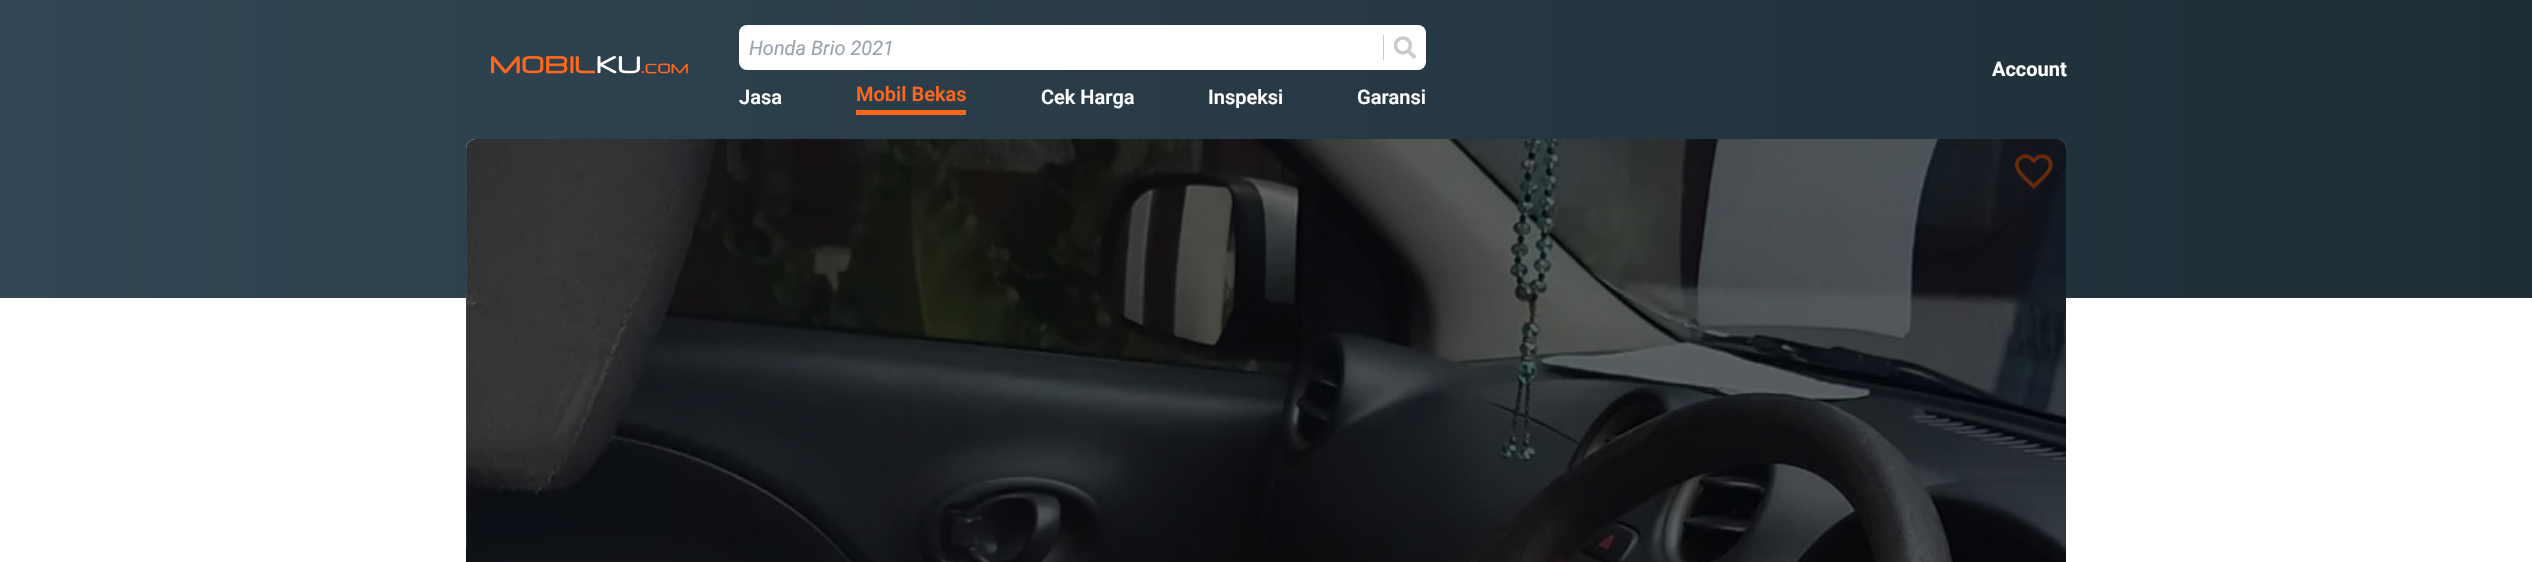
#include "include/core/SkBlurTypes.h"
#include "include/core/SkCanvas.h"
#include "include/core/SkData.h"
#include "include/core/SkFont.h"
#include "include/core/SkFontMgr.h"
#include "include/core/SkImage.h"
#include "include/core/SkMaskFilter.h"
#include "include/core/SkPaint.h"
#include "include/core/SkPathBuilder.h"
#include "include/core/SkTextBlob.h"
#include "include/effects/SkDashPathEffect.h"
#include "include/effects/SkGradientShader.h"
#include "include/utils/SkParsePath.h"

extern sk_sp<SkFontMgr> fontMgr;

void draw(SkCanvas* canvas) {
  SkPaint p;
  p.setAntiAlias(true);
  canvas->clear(SK_ColorWHITE);
  {
    const SkColor colors[] = {SkColorSetRGB(50, 70, 85), SkColorSetRGB(28, 45, 53)};
    const float stops[] = {0, 1};
    const SkPoint ends[] = {{0, 60}, {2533, 60}};
    p.setShader(SkGradientShader::MakeLinear(ends, colors, stops, 2, SkTileMode::kClamp));
    p.setAlpha(255);
  }
  canvas->drawRect(SkRect::MakeLTRB(0, 0, 2532, 120), p);
  canvas->drawImageRect(SkImages::DeferredFromEncodedData(SkData::MakeFromFileName("images/1.png")), SkRect::MakeLTRB(491, 56, 688, 74), SkSamplingOptions());
  p.setShader(nullptr);
  p.setColor(SK_ColorWHITE);
  canvas->drawRoundRect(SkRect::MakeLTRB(739, 25, 1426, 70), 8, 8, p);
  p.setColor(SkColorSetRGB(202, 202, 202));
  canvas->drawRect(SkRect::MakeLTRB(1383, 35, 1384, 60), p);
  canvas->drawImageRect(SkImages::DeferredFromEncodedData(SkData::MakeFromFileName("images/2.png")), SkRect::MakeLTRB(1394, 36, 1416, 59), SkSamplingOptions());
  p.setColor(SkColorSetRGB(255, 103, 29));
  canvas->drawRect(SkRect::MakeLTRB(856, 110, 966, 115), p);
  {
    const SkColor colors[] = {SkColorSetRGB(50, 70, 85), SkColorSetRGB(28, 45, 53)};
    const float stops[] = {0, 1};
    const SkPoint ends[] = {{0, 204}, {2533, 204}};
    p.setShader(SkGradientShader::MakeLinear(ends, colors, stops, 2, SkTileMode::kClamp));
    p.setAlpha(255);
  }
  canvas->drawRect(SkRect::MakeLTRB(0, 120, 2532, 298), p);
  p.setShader(nullptr);
  p.setColor(SK_ColorWHITE);
  canvas->drawPath(SkPathBuilder().moveTo(476, 139).lineTo(2056, 139).cubicTo(2061.5f, 139, 2066, 143.5f, 2066, 149).lineTo(2066, 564).cubicTo(2066, 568.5f, 2062.5f, 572, 2058, 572).lineTo(474, 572).cubicTo(469.5f, 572, 466, 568.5f, 466, 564).lineTo(466, 149).cubicTo(466, 143.5f, 470.5f, 139, 476, 139).close().detach(), p);
  canvas->drawImageRect(SkImages::DeferredFromEncodedData(SkData::MakeFromFileName("images/3.png")), SkRect::MakeLTRB(466, 139, 2066, 562), SkSamplingOptions());
  canvas->drawImageRect(SkImages::DeferredFromEncodedData(SkData::MakeFromFileName("images/4.png")), SkRect::MakeLTRB(2015, 154, 2053, 189), SkSamplingOptions());
  p.setColor(SkColorSetARGB(153, 0, 0, 0));
  canvas->drawRoundRect(SkRect::MakeLTRB(466, 139, 2066, 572), 10, 10, p);
  SkFont font1(fontMgr->matchFamilyStyle("Roboto", SkFontStyle::Italic()), 20);
  font1.setSubpixel(true);
  p.setColor(SkColorSetRGB(156, 163, 175));
  canvas->drawString("Honda Brio 2021", 749, 55, font1, p);
  SkFont font2(fontMgr->matchFamilyStyle("Roboto", SkFontStyle(600, SkFontStyle::kNormal_Width, SkFontStyle::kUpright_Slant)), 20);
  font2.setSubpixel(true);
  p.setColor(SK_ColorWHITE);
  canvas->drawString("Jasa", 739, 104, font2, p);
  p.setColor(SkColorSetRGB(255, 103, 29));
  canvas->drawString("Mobil Bekas", 856, 101, font2, p);
  p.setColor(SK_ColorWHITE);
  canvas->drawString("Cek Harga", 1041, 104, font2, p);
  canvas->drawString("Inspeksi", 1208, 104, font2, p);
  canvas->drawString("Garansi", 1357, 104, font2, p);
  SkFont font3(fontMgr->matchFamilyStyle("Roboto", SkFontStyle::Bold()), 20);
  font3.setSubpixel(true);
  canvas->drawString("Account", 1992, 76, font3, p);
}
